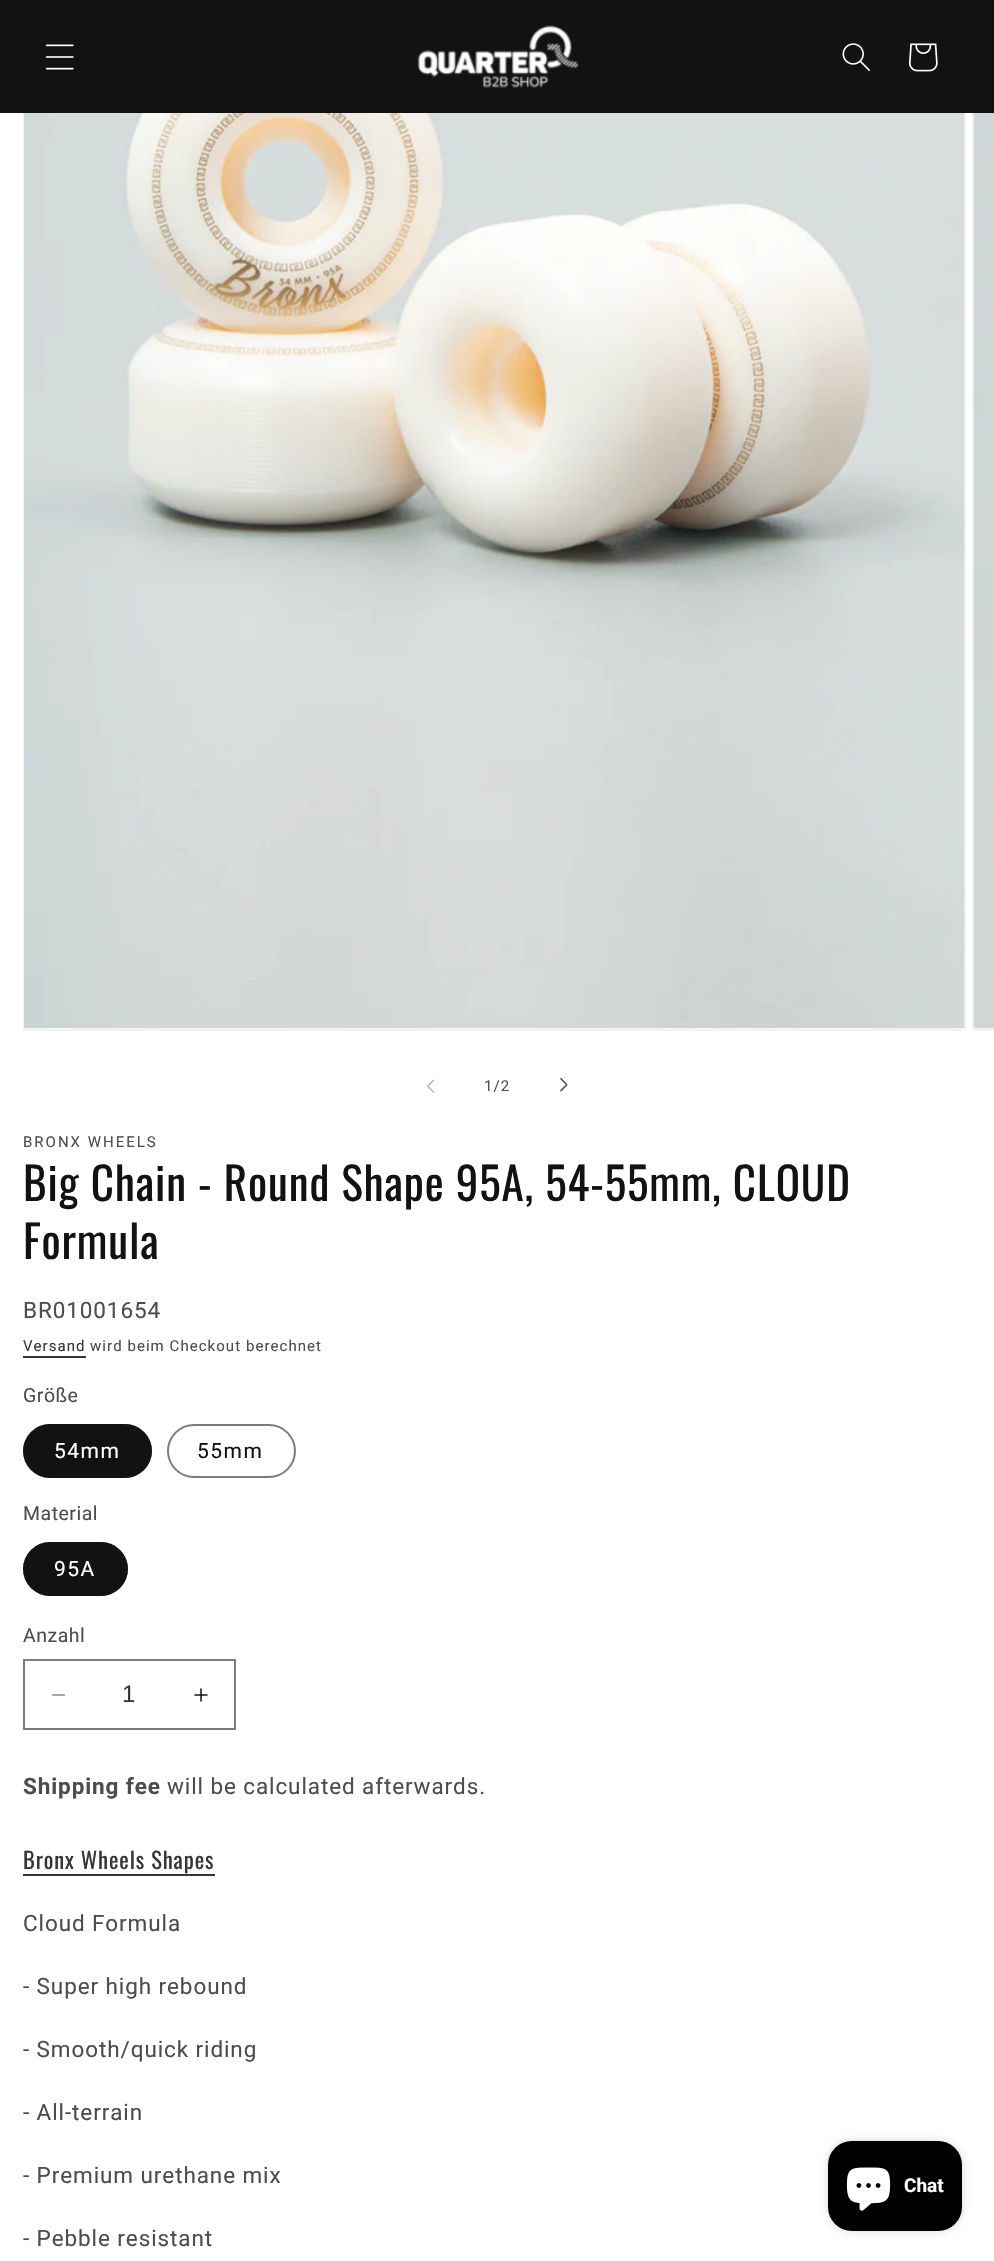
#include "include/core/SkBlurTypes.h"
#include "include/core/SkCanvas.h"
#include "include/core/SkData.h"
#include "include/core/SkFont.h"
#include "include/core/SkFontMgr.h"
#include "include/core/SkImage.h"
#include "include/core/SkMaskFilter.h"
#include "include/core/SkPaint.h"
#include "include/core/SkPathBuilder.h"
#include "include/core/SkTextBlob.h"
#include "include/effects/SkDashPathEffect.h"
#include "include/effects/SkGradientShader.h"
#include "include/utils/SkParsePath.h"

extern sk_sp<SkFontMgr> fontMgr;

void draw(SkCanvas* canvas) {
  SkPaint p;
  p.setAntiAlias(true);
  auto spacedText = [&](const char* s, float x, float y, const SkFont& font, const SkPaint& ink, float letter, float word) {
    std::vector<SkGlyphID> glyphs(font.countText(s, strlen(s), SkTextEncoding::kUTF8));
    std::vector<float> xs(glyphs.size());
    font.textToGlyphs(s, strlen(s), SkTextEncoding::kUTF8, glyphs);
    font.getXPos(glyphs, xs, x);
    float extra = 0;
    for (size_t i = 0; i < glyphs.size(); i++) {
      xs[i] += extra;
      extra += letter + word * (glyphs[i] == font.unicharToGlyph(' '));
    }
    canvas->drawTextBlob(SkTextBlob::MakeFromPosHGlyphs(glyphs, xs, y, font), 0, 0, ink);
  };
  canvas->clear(SK_ColorWHITE);
  p.setStyle(SkPaint::kStroke_Style);
  p.setStrokeWidth(2);
  p.setColor(SkColorSetRGB(243, 243, 243));
  canvas->drawRect(SkRect::MakeLTRB(24, -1, 965, 1030), p);
  canvas->drawRect(SkRect::MakeLTRB(973, -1, 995, 1030), p);
  p.setStyle(SkPaint::kFill_Style);
  p.setColor(SkColorSetRGB(18, 18, 18));
  canvas->drawRect(SkRect::MakeLTRB(0, 0, 994, 113), p);
  canvas->drawImageRect(SkImages::DeferredFromEncodedData(SkData::MakeFromFileName("images/1.png")), SkRect::MakeLTRB(45, 44, 74, 70), SkSamplingOptions());
  canvas->drawImageRect(SkImages::DeferredFromEncodedData(SkData::MakeFromFileName("images/2.png")), SkRect::MakeLTRB(417, 25, 579, 88), SkSamplingOptions());
  canvas->drawImageRect(SkImages::DeferredFromEncodedData(SkData::MakeFromFileName("images/3.png")), SkRect::MakeLTRB(842, 43, 870, 71), SkSamplingOptions());
  canvas->drawImageRect(SkImages::DeferredFromEncodedData(SkData::MakeFromFileName("images/4.png")), SkRect::MakeLTRB(909, 43, 938, 72), SkSamplingOptions());
  canvas->drawImageRect(SkImages::DeferredFromEncodedData(SkData::MakeFromFileName("images/5.png")), SkRect::MakeLTRB(24, 113, 965, 1029), SkSamplingOptions());
  canvas->drawImageRect(SkImages::DeferredFromEncodedData(SkData::MakeFromFileName("images/6.png")), SkRect::MakeLTRB(973, 113, 994, 1029), SkSamplingOptions());
  canvas->drawImageRect(SkImages::DeferredFromEncodedData(SkData::MakeFromFileName("images/7.png")), SkRect::MakeLTRB(427, 1079, 435, 1093), SkSamplingOptions());
  canvas->drawImageRect(SkImages::DeferredFromEncodedData(SkData::MakeFromFileName("images/8.png")), SkRect::MakeLTRB(560, 1078, 568, 1092), SkSamplingOptions());
  p.setColor(SkColorSetRGB(54, 54, 54));
  canvas->drawRect(SkRect::MakeLTRB(23, 1356, 86, 1358), p);
  p.setColor(SkColorSetRGB(18, 18, 18));
  canvas->drawRoundRect(SkRect::MakeLTRB(23, 1424, 152, 1478), 27, 27, p);
  p.setStyle(SkPaint::kStroke_Style);
  p.setColor(SkColorSetARGB(140, 18, 18, 18));
  canvas->drawRoundRect(SkRect::MakeLTRB(24, 1425, 151, 1477), 26, 26, p);
  p.setColor(SkColorSetRGB(125, 125, 125));
  canvas->drawRoundRect(SkRect::MakeLTRB(168, 1425, 295, 1477), 26, 26, p);
  p.setStyle(SkPaint::kFill_Style);
  p.setColor(SkColorSetRGB(18, 18, 18));
  canvas->drawRoundRect(SkRect::MakeLTRB(23, 1542, 128, 1596), 27, 27, p);
  p.setStyle(SkPaint::kStroke_Style);
  p.setColor(SkColorSetARGB(140, 18, 18, 18));
  canvas->drawRoundRect(SkRect::MakeLTRB(24, 1543, 127, 1595), 26, 26, p);
  canvas->drawImageRect(SkImages::DeferredFromEncodedData(SkData::MakeFromFileName("images/9.png")), SkRect::MakeLTRB(51, 1694, 66, 1696), SkSamplingOptions());
  canvas->drawImageRect(SkImages::DeferredFromEncodedData(SkData::MakeFromFileName("images/10.png")), SkRect::MakeLTRB(194, 1688, 208, 1702), SkSamplingOptions());
  p.setColor(SkColorSetRGB(125, 125, 125));
  canvas->drawRect(SkRect::MakeLTRB(24, 1660, 235, 1729), p);
  p.setStyle(SkPaint::kFill_Style);
  p.setColor(SkColorSetRGB(54, 54, 54));
  canvas->drawRect(SkRect::MakeLTRB(23, 1874, 215, 1876), p);
  p.setColor(SkColorSetARGB(38, 0, 0, 0));
  p.setMaskFilter(SkMaskFilter::MakeBlur(kNormal_SkBlurStyle, 4));
  canvas->drawRoundRect(SkRect::MakeLTRB(828, 2141, 962, 2231), 24, 24, p);
  p.setMaskFilter(nullptr);
  p.setColor(SK_ColorBLACK);
  canvas->drawRoundRect(SkRect::MakeLTRB(828, 2141, 962, 2231), 24, 24, p);
  canvas->drawImageRect(SkImages::DeferredFromEncodedData(SkData::MakeFromFileName("images/11.png")), SkRect::MakeLTRB(846, 2167, 891, 2211), SkSamplingOptions());
  SkFont font1(fontMgr->matchFamilyStyle("Roboto", SkFontStyle::Normal()), 15);
  font1.setSubpixel(true);
  p.setColor(SkColorSetRGB(77, 77, 77));
  spacedText("1/2", 484, 1091, font1, p, 1.05f, 0);
  spacedText("BRONX WHEELS", 23, 1147, font1, p, 2, 0);
  SkFont font2(fontMgr->matchFamilyStyle("Oswald", SkFontStyle::Normal()), 45);
  font2.setSubpixel(true);
  p.setColor(SkColorSetRGB(18, 18, 18));
  spacedText("Big Chain - Round Shape 95A, 54-55mm, CLOUD", 23, 1201, font2, p, 0.9f, 0);
  spacedText("Formula", 23, 1259, font2, p, 0.9f, 0);
  SkFont font3(fontMgr->matchFamilyStyle("Roboto", SkFontStyle::Normal()), 22.5f);
  font3.setSubpixel(true);
  p.setColor(SkColorSetRGB(77, 77, 77));
  spacedText("BR01001654", 23, 1318, font3, p, 0.9f, 0);
  p.setColor(SkColorSetRGB(54, 54, 54));
  spacedText("Versand", 23, 1351, font1, p, 1.05f, 0);
  p.setColor(SkColorSetRGB(77, 77, 77));
  spacedText("wird beim Checkout berechnet", 90, 1351, font1, p, 1.05f, 0);
  SkFont font4(fontMgr->matchFamilyStyle("Roboto", SkFontStyle::Normal()), 19.5f);
  font4.setSubpixel(true);
  spacedText("Größe", 23, 1402, font4, p, 0.5f, 0);
  SkFont font5(fontMgr->matchFamilyStyle("Roboto", SkFontStyle::Normal()), 21);
  font5.setSubpixel(true);
  p.setColor(SK_ColorWHITE);
  spacedText("54mm", 54, 1458, font5, p, 1.5f, 0);
  p.setColor(SkColorSetRGB(18, 18, 18));
  spacedText("55mm", 197, 1458, font5, p, 1.5f, 0);
  p.setColor(SkColorSetRGB(77, 77, 77));
  spacedText("Material", 23, 1520, font4, p, 0.5f, 0);
  p.setColor(SK_ColorWHITE);
  spacedText("95A", 54, 1576, font5, p, 1.5f, 0);
  p.setColor(SkColorSetRGB(77, 77, 77));
  spacedText("Anzahl", 23, 1642, font4, p, 0.5f, 0);
  SkFont font6(fontMgr->matchFamilyStyle("Liberation Sans", SkFontStyle::Normal()), 24);
  font6.setSubpixel(true);
  p.setColor(SkColorSetRGB(54, 54, 54));
  canvas->drawString("1", 122, 1702, font6, p);
  SkFont font7(fontMgr->matchFamilyStyle("Roboto", SkFontStyle::Bold()), 22.5f);
  font7.setSubpixel(true);
  p.setColor(SkColorSetRGB(77, 77, 77));
  spacedText("Shipping fee", 23, 1794, font7, p, 0.9f, 0);
  spacedText("will be calculated afterwards.", 167, 1794, font3, p, 0.9f, 0);
  SkFont font8(fontMgr->matchFamilyStyle("Oswald", SkFontStyle::Normal()), 22.5f);
  font8.setSubpixel(true);
  p.setColor(SkColorSetRGB(54, 54, 54));
  spacedText("Bronx Wheels Shapes", 23, 1869, font8, p, 0.9f, 0);
  p.setColor(SkColorSetRGB(77, 77, 77));
  spacedText("Cloud Formula", 23, 1931, font3, p, 0.9f, 0);
  spacedText("- Super high rebound", 23, 1994, font3, p, 0.9f, 0);
  spacedText("- Smooth/quick riding", 23, 2057, font3, p, 0.9f, 0);
  spacedText("- All-terrain", 23, 2120, font3, p, 0.9f, 0);
  spacedText("- Premium urethane mix", 23, 2183, font3, p, 0.9f, 0);
  spacedText("- Pebble resistant", 23, 2246, font3, p, 0.9f, 0);
  SkFont font9(fontMgr->matchFamilyStyle("Roboto", SkFontStyle::Bold()), 19);
  font9.setSubpixel(true);
  p.setColor(SK_ColorWHITE);
  canvas->drawString("Chat", 904, 2192, font9, p);
}
